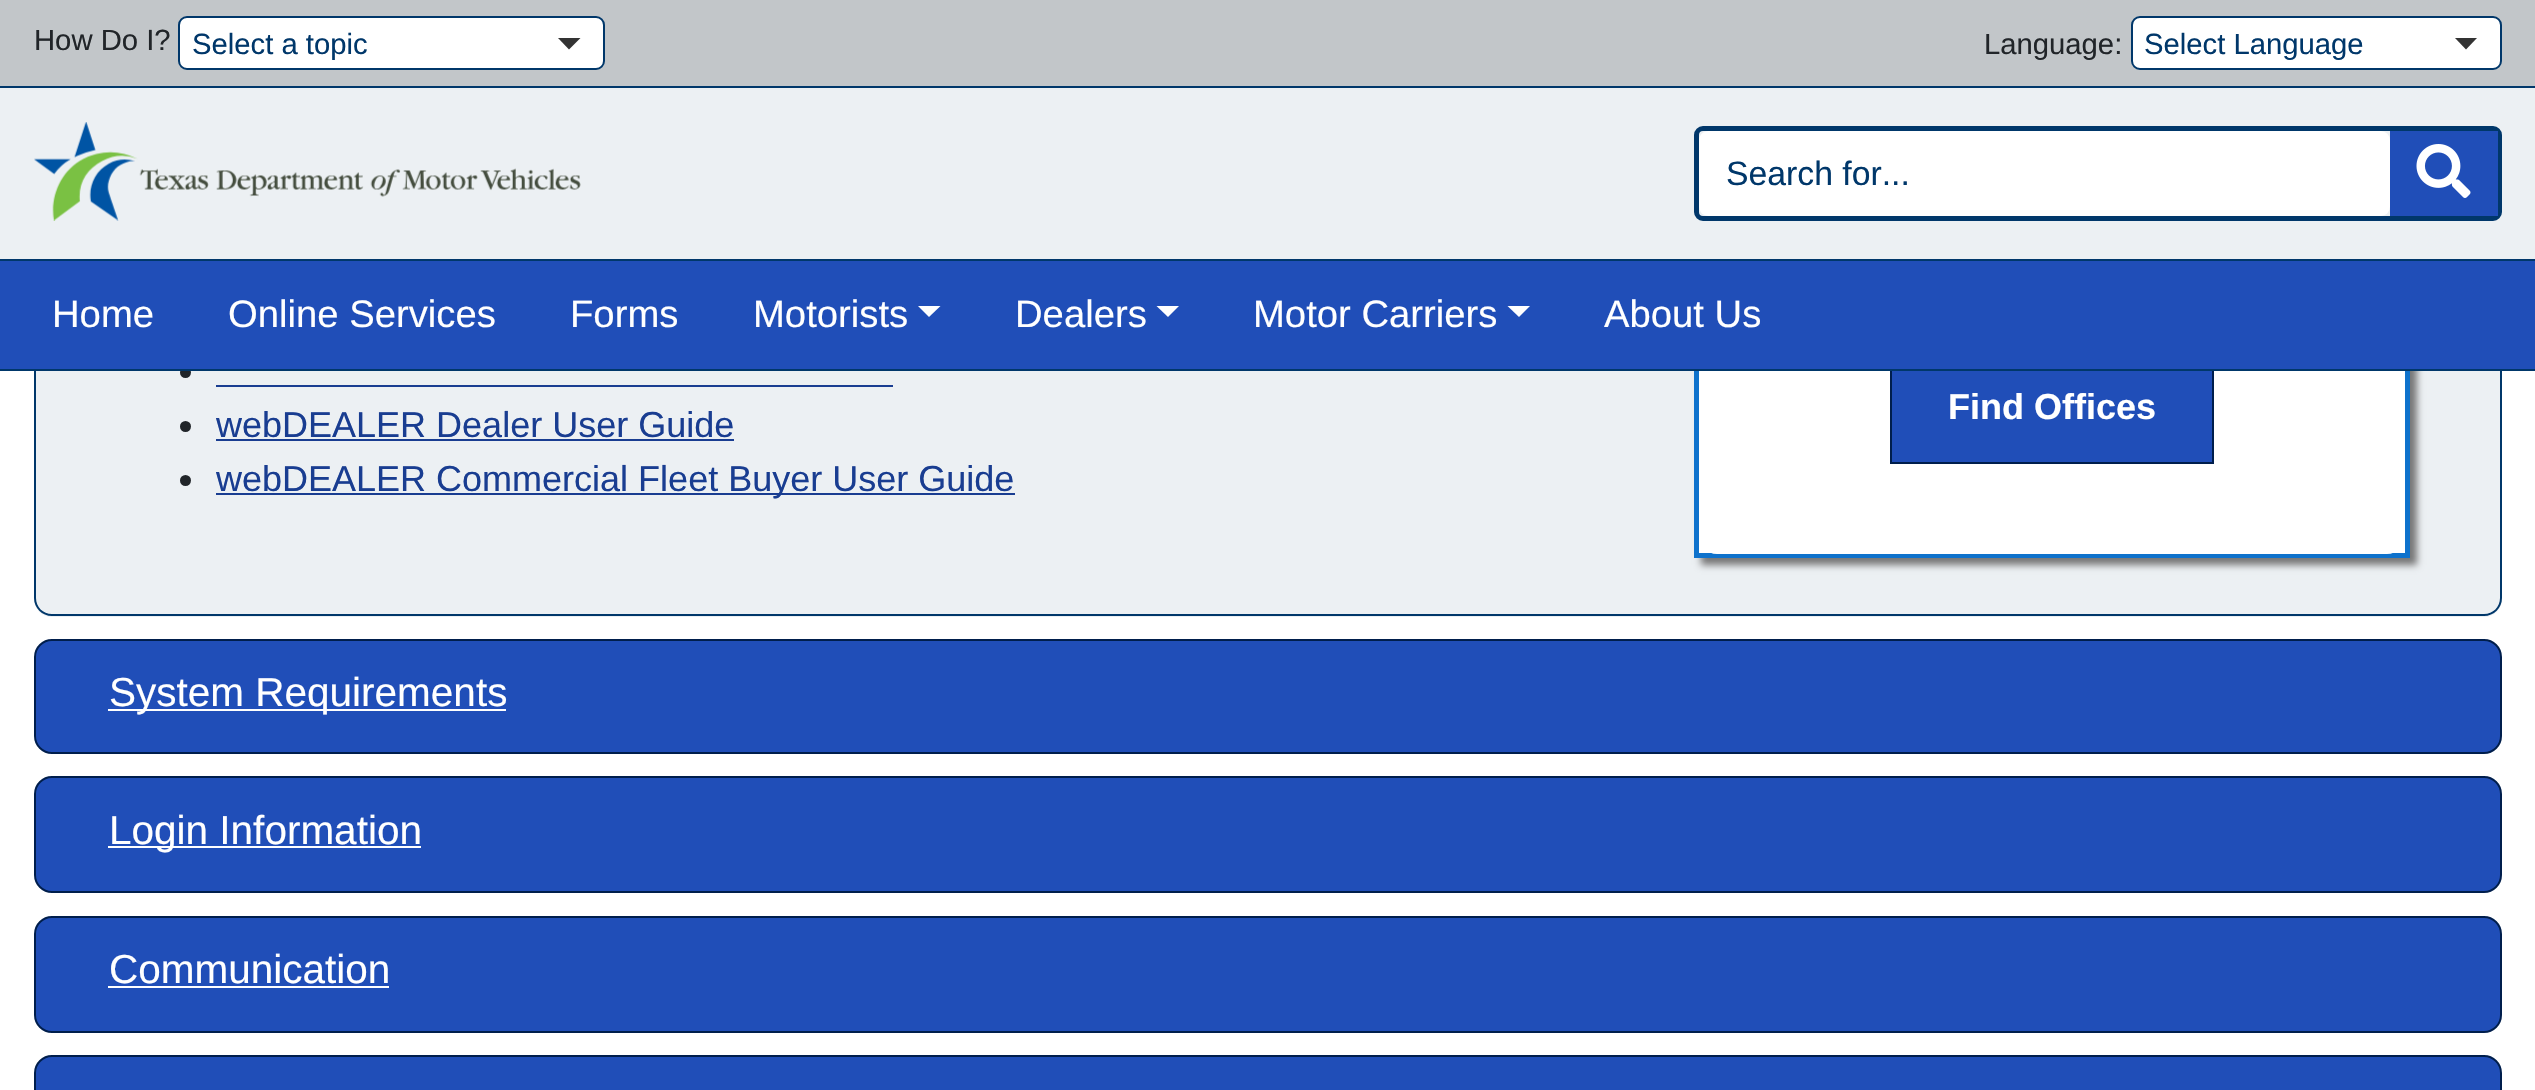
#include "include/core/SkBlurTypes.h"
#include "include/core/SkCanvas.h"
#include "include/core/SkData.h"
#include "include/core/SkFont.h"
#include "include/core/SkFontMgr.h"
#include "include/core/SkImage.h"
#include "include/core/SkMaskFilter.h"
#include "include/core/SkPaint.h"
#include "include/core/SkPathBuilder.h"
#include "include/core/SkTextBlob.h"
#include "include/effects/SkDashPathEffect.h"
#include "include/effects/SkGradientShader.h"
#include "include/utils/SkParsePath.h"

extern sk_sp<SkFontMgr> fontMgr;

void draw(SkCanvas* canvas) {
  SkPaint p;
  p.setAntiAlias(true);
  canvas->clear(SK_ColorWHITE);
  p.setColor(SkColorSetRGB(236, 240, 243));
  canvas->drawPath(SkPathBuilder().moveTo(34, -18).lineTo(2502, -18).lineTo(2502, 599).cubicTo(2502, 609, 2494, 617, 2484, 617).lineTo(52, 617).cubicTo(42, 617, 34, 609, 34, 599).close().detach(), p);
  p.setColor(SkColorSetRGB(0, 55, 106));
  canvas->drawPath(SkPathBuilder(SkPathFillType::kEvenOdd).moveTo(34, -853).lineTo(2502, -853).lineTo(2502, 598).cubicTo(2502, 608, 2494, 616, 2484, 616).lineTo(52, 616).cubicTo(42, 616, 34, 608, 34, 598).close().moveTo(36, -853).lineTo(2500, -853).lineTo(2500, 598).cubicTo(2500, 607, 2493, 614, 2484, 614).lineTo(52, 614).cubicTo(43, 614, 36, 607, 36, 598).close().detach(), p);
  p.setColor(SkColorSetRGB(119, 119, 119));
  p.setMaskFilter(SkMaskFilter::MakeBlur(kNormal_SkBlurStyle, 3.5f));
  canvas->drawRect(SkRect::MakeLTRB(1701, -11, 2417, 565), p);
  p.setMaskFilter(nullptr);
  p.setColor(SK_ColorWHITE);
  canvas->drawRect(SkRect::MakeLTRB(1699, 536, 2405, 553), p);
  p.setStyle(SkPaint::kStroke_Style);
  p.setStrokeWidth(5);
  p.setColor(SkColorSetRGB(14, 114, 204));
  canvas->drawRect(SkRect::MakeLTRB(1696.5f, -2.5f, 2407.5f, 555.5f), p);
  p.setStyle(SkPaint::kFill_Style);
  p.setColor(SK_ColorWHITE);
  canvas->drawPath(SkPathBuilder().moveTo(1699, -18).lineTo(2405, -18).lineTo(2405, 536).cubicTo(2405, 546, 2397, 554, 2387, 554).lineTo(1717, 554).cubicTo(1707, 554, 1699, 546, 1699, 536).close().detach(), p);
  p.setColor(SkColorSetRGB(194, 198, 201));
  canvas->drawRect(SkRect::MakeLTRB(0, 0, 2535, 86), p);
  p.setColor(SkColorSetRGB(0, 55, 106));
  canvas->drawRect(SkRect::MakeLTRB(0, 86, 2535, 88), p);
  p.setColor(SK_ColorWHITE);
  canvas->drawRoundRect(SkRect::MakeLTRB(179, 17, 604, 69), 8, 8, p);
  p.setStyle(SkPaint::kStroke_Style);
  p.setStrokeWidth(2);
  p.setColor(SkColorSetRGB(0, 55, 106));
  canvas->drawRoundRect(SkRect::MakeLTRB(179, 17, 604, 69), 8, 8, p);
  p.setStyle(SkPaint::kFill_Style);
  p.setColor(SkColorSetRGB(51, 51, 51));
  canvas->drawPath(SkPathBuilder().moveTo(558, 38).lineTo(580.5f, 38).lineTo(569, 49.5f).close().detach(), p);
  p.setColor(SK_ColorWHITE);
  canvas->drawRoundRect(SkRect::MakeLTRB(2132, 17, 2501, 69), 8, 8, p);
  p.setStyle(SkPaint::kStroke_Style);
  p.setColor(SkColorSetRGB(0, 55, 106));
  canvas->drawRoundRect(SkRect::MakeLTRB(2132, 17, 2501, 69), 8, 8, p);
  p.setStyle(SkPaint::kFill_Style);
  p.setColor(SkColorSetRGB(51, 51, 51));
  canvas->drawPath(SkPathBuilder().moveTo(2455, 38).lineTo(2477, 38).lineTo(2466, 49.5f).close().detach(), p);
  p.setColor(SkColorSetRGB(236, 240, 243));
  canvas->drawRect(SkRect::MakeLTRB(0, 88, 2535, 259), p);
  p.setColor(SkColorSetRGB(0, 55, 106));
  canvas->drawRect(SkRect::MakeLTRB(0, 259, 2535, 261), p);
  canvas->drawImageRect(SkImages::DeferredFromEncodedData(SkData::MakeFromFileName("images/1.png")), SkRect::MakeLTRB(34, 122, 581, 221), SkSamplingOptions());
  p.setStyle(SkPaint::kStroke_Style);
  p.setStrokeWidth(5);
  canvas->drawRoundRect(SkRect::MakeLTRB(1696.5f, 128.5f, 2499.5f, 218.5f), 6.5f, 6.5f, p);
  p.setStyle(SkPaint::kFill_Style);
  p.setColor(SK_ColorWHITE);
  canvas->drawRoundRect(SkRect::MakeLTRB(1699, 131, 2390, 216), 9, 9, p);
  p.setColor(SkColorSetRGB(32, 78, 184));
  canvas->drawRect(SkRect::MakeLTRB(2390, 131, 2498, 216), p);
  canvas->drawImageRect(SkImages::DeferredFromEncodedData(SkData::MakeFromFileName("images/2.png")), SkRect::MakeLTRB(2416, 144, 2471, 198), SkSamplingOptions());
  canvas->drawRect(SkRect::MakeLTRB(1892, 371, 2212, 462), p);
  p.setStyle(SkPaint::kStroke_Style);
  p.setStrokeWidth(2);
  p.setColor(SkColorSetRGB(0, 30, 76));
  canvas->drawRect(SkRect::MakeLTRB(1891, 352, 2213, 463), p);
  p.setStyle(SkPaint::kFill_Style);
  p.setColor(SkColorSetRGB(33, 37, 41));
  canvas->drawCircle(185.5f, 372.5f, 5.5f, p);
  p.setColor(SkColorSetRGB(32, 78, 184));
  canvas->drawRect(SkRect::MakeLTRB(0, 261, 2535, 369), p);
  p.setColor(SkColorSetRGB(0, 55, 106));
  canvas->drawRect(SkRect::MakeLTRB(0, 369, 2535, 371), p);
  p.setColor(SK_ColorWHITE);
  canvas->drawPath(SkPathBuilder().moveTo(918, 306).lineTo(940.5f, 306).lineTo(929, 317).close().detach(), p);
  canvas->drawPath(SkPathBuilder().moveTo(1156.5f, 306).lineTo(1179, 306).lineTo(1168, 317).close().detach(), p);
  canvas->drawPath(SkPathBuilder().moveTo(1507.5f, 306).lineTo(1530, 306).lineTo(1519, 317).close().detach(), p);
  p.setColor(SkColorSetRGB(25, 61, 145));
  canvas->drawRect(SkRect::MakeLTRB(216, 385, 893, 387), p);
  p.setColor(SkColorSetRGB(33, 37, 41));
  canvas->drawCircle(185.5f, 426.5f, 5.5f, p);
  p.setColor(SkColorSetRGB(25, 61, 145));
  canvas->drawRect(SkRect::MakeLTRB(216, 439, 734, 441), p);
  p.setColor(SkColorSetRGB(33, 37, 41));
  canvas->drawCircle(185.5f, 480.5f, 5.5f, p);
  p.setColor(SkColorSetRGB(25, 61, 145));
  canvas->drawRect(SkRect::MakeLTRB(216, 493, 1015, 495), p);
  p.setColor(SkColorSetRGB(32, 78, 184));
  canvas->drawRoundRect(SkRect::MakeLTRB(35, 640, 2501, 753), 17, 17, p);
  p.setStyle(SkPaint::kStroke_Style);
  p.setColor(SkColorSetRGB(0, 30, 76));
  canvas->drawRoundRect(SkRect::MakeLTRB(35, 640, 2501, 753), 17, 17, p);
  p.setStyle(SkPaint::kFill_Style);
  p.setColor(SK_ColorWHITE);
  canvas->drawRect(SkRect::MakeLTRB(108, 709, 506, 711), p);
  p.setColor(SkColorSetRGB(32, 78, 184));
  canvas->drawRoundRect(SkRect::MakeLTRB(35, 777, 2501, 892), 17, 17, p);
  p.setStyle(SkPaint::kStroke_Style);
  p.setColor(SkColorSetRGB(0, 30, 76));
  canvas->drawRoundRect(SkRect::MakeLTRB(35, 777, 2501, 892), 17, 17, p);
  p.setStyle(SkPaint::kFill_Style);
  p.setColor(SK_ColorWHITE);
  canvas->drawRect(SkRect::MakeLTRB(108, 846, 421, 848), p);
  p.setColor(SkColorSetRGB(32, 78, 184));
  canvas->drawRoundRect(SkRect::MakeLTRB(35, 917, 2501, 1032), 17, 17, p);
  p.setStyle(SkPaint::kStroke_Style);
  p.setColor(SkColorSetRGB(0, 30, 76));
  canvas->drawRoundRect(SkRect::MakeLTRB(35, 917, 2501, 1032), 17, 17, p);
  p.setStyle(SkPaint::kFill_Style);
  p.setColor(SK_ColorWHITE);
  canvas->drawRect(SkRect::MakeLTRB(108, 986, 389, 988), p);
  p.setColor(SkColorSetRGB(32, 78, 184));
  canvas->drawRoundRect(SkRect::MakeLTRB(35, 1056, 2501, 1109), 17, 17, p);
  p.setStyle(SkPaint::kStroke_Style);
  p.setColor(SkColorSetRGB(0, 30, 76));
  canvas->drawRoundRect(SkRect::MakeLTRB(35, 1056, 2501, 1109), 17, 17, p);
  SkFont font1(fontMgr->matchFamilyStyle("Liberation Sans", SkFontStyle::Normal()), 29.25f);
  font1.setSubpixel(true);
  p.setStyle(SkPaint::kFill_Style);
  p.setColor(SkColorSetRGB(33, 37, 41));
  canvas->drawString("How Do I?", 34, 50, font1, p);
  p.setColor(SkColorSetRGB(0, 55, 106));
  canvas->drawString("Select a topic", 192, 54, font1, p);
  p.setColor(SkColorSetRGB(33, 37, 41));
  canvas->drawString("Language:", 1984, 54, font1, p);
  p.setColor(SkColorSetRGB(0, 55, 106));
  canvas->drawString("Select Language", 2144, 54, font1, p);
  SkFont font2(fontMgr->matchFamilyStyle("Liberation Sans", SkFontStyle::Normal()), 33.75f);
  font2.setSubpixel(true);
  canvas->drawString("Search for...", 1726, 185, font2, p);
  SkFont font3(fontMgr->matchFamilyStyle("Liberation Sans", SkFontStyle::Normal()), 38.25f);
  font3.setSubpixel(true);
  p.setColor(SK_ColorWHITE);
  canvas->drawString("Home", 52, 327, font3, p);
  canvas->drawString("Online Services", 228, 327, font3, p);
  canvas->drawString("Forms", 570, 327, font3, p);
  canvas->drawString("Motorists", 753, 327, font3, p);
  canvas->drawString("Dealers", 1015, 327, font3, p);
  canvas->drawString("Motor Carriers", 1253, 327, font3, p);
  canvas->drawString("About Us", 1604, 327, font3, p);
  SkFont font4(fontMgr->matchFamilyStyle("Liberation Sans", SkFontStyle::Bold()), 36);
  font4.setSubpixel(true);
  canvas->drawString("Find Offices", 1948, 419, font4, p);
  SkFont font5(fontMgr->matchFamilyStyle("Liberation Sans", SkFontStyle::Normal()), 36);
  font5.setSubpixel(true);
  p.setColor(SkColorSetRGB(25, 61, 145));
  canvas->drawString("webDEALER Dealer User Guide", 216, 437, font5, p);
  canvas->drawString("webDEALER Commercial Fleet Buyer User Guide", 216, 491, font5, p);
  SkFont font6(fontMgr->matchFamilyStyle("Liberation Sans", SkFontStyle::Normal()), 40.5f);
  font6.setSubpixel(true);
  p.setColor(SK_ColorWHITE);
  canvas->drawString("System Requirements", 109, 706, font6, p);
  canvas->drawString("Login Information", 109, 844, font6, p);
  canvas->drawString("Communication", 109, 983, font6, p);
}
